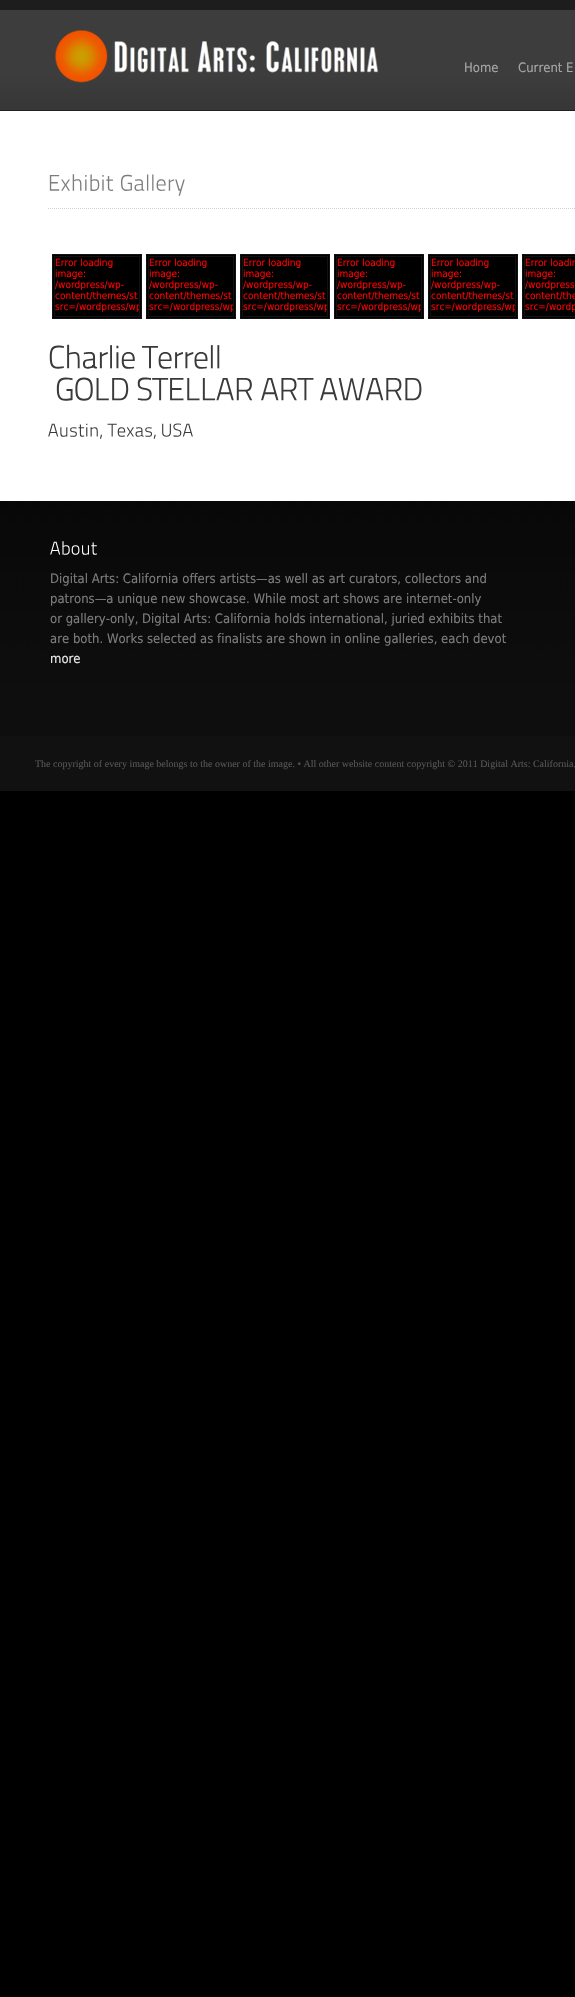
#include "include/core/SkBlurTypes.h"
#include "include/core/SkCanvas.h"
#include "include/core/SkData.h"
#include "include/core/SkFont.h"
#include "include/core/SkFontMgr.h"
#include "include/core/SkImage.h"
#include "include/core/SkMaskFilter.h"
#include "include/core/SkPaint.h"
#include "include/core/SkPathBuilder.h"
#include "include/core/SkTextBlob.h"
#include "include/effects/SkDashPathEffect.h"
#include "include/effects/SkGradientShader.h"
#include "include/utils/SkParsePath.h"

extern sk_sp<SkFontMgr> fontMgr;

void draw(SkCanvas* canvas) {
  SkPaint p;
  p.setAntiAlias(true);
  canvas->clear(SK_ColorBLACK);
  canvas->drawImageRect(SkImages::DeferredFromEncodedData(SkData::MakeFromFileName("images/1.png")), SkRect::MakeLTRB(0, 0, 575, 10), SkSamplingOptions());
  p.setColor(SK_ColorWHITE);
  canvas->drawRect(SkRect::MakeLTRB(0, 111, 575, 501), p);
  canvas->drawImageRect(SkImages::DeferredFromEncodedData(SkData::MakeFromFileName("images/2.png")), SkRect::MakeLTRB(0, 10, 575, 111), SkSamplingOptions());
  canvas->drawImageRect(SkImages::DeferredFromEncodedData(SkData::MakeFromFileName("images/3.png")), SkRect::MakeLTRB(55, 30, 379, 83), SkSamplingOptions());
  p.setStyle(SkPaint::kStroke_Style);
  p.setStrokeWidth(1);
  p.setColor(SkColorSetRGB(209, 209, 209));
  p.setPathEffect(SkDashPathEffect::Make({{1, 1}}, 0));
  canvas->drawPath(SkPathBuilder().moveTo(48, 208.5f).lineTo(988, 208.5f).detach(), p);
  p.setPathEffect(nullptr);
  canvas->drawImageRect(SkImages::DeferredFromEncodedData(SkData::MakeFromFileName("images/4.png")), SkRect::MakeLTRB(49, 174, 114, 191), SkSamplingOptions());
  canvas->drawImageRect(SkImages::DeferredFromEncodedData(SkData::MakeFromFileName("images/5.png")), SkRect::MakeLTRB(121, 174, 185, 196), SkSamplingOptions());
  p.setStyle(SkPaint::kFill_Style);
  p.setColor(SK_ColorBLACK);
  canvas->drawRect(SkRect::MakeLTRB(52.5f, 254.5f, 141.5f, 318.5f), p);
  p.setStyle(SkPaint::kStroke_Style);
  p.setColor(SkColorSetRGB(17, 17, 17));
  canvas->drawRect(SkRect::MakeLTRB(52.5f, 254.5f, 141.5f, 318.5f), p);
  canvas->drawRect(SkRect::MakeLTRB(54.5f, 256.5f, 139.5f, 316.5f), p);
  p.setStyle(SkPaint::kFill_Style);
  p.setColor(SK_ColorBLACK);
  canvas->drawRect(SkRect::MakeLTRB(146.5f, 254.5f, 235.5f, 318.5f), p);
  p.setStyle(SkPaint::kStroke_Style);
  p.setColor(SkColorSetRGB(17, 17, 17));
  canvas->drawRect(SkRect::MakeLTRB(146.5f, 254.5f, 235.5f, 318.5f), p);
  canvas->drawRect(SkRect::MakeLTRB(148.5f, 256.5f, 233.5f, 316.5f), p);
  p.setStyle(SkPaint::kFill_Style);
  p.setColor(SK_ColorBLACK);
  canvas->drawRect(SkRect::MakeLTRB(240.5f, 254.5f, 329.5f, 318.5f), p);
  p.setStyle(SkPaint::kStroke_Style);
  p.setColor(SkColorSetRGB(17, 17, 17));
  canvas->drawRect(SkRect::MakeLTRB(240.5f, 254.5f, 329.5f, 318.5f), p);
  canvas->drawRect(SkRect::MakeLTRB(242.5f, 256.5f, 327.5f, 316.5f), p);
  p.setStyle(SkPaint::kFill_Style);
  p.setColor(SK_ColorBLACK);
  canvas->drawRect(SkRect::MakeLTRB(334.5f, 254.5f, 423.5f, 318.5f), p);
  p.setStyle(SkPaint::kStroke_Style);
  p.setColor(SkColorSetRGB(17, 17, 17));
  canvas->drawRect(SkRect::MakeLTRB(334.5f, 254.5f, 423.5f, 318.5f), p);
  canvas->drawRect(SkRect::MakeLTRB(336.5f, 256.5f, 421.5f, 316.5f), p);
  p.setStyle(SkPaint::kFill_Style);
  p.setColor(SK_ColorBLACK);
  canvas->drawRect(SkRect::MakeLTRB(428.5f, 254.5f, 517.5f, 318.5f), p);
  p.setStyle(SkPaint::kStroke_Style);
  p.setColor(SkColorSetRGB(17, 17, 17));
  canvas->drawRect(SkRect::MakeLTRB(428.5f, 254.5f, 517.5f, 318.5f), p);
  canvas->drawRect(SkRect::MakeLTRB(430.5f, 256.5f, 515.5f, 316.5f), p);
  p.setStyle(SkPaint::kFill_Style);
  p.setColor(SK_ColorBLACK);
  canvas->drawRect(SkRect::MakeLTRB(522.5f, 254.5f, 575.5f, 318.5f), p);
  p.setStyle(SkPaint::kStroke_Style);
  p.setColor(SkColorSetRGB(17, 17, 17));
  canvas->drawRect(SkRect::MakeLTRB(522.5f, 254.5f, 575.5f, 318.5f), p);
  canvas->drawRect(SkRect::MakeLTRB(524.5f, 256.5f, 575.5f, 316.5f), p);
  canvas->drawImageRect(SkImages::DeferredFromEncodedData(SkData::MakeFromFileName("images/6.png")), SkRect::MakeLTRB(49, 344, 135, 369), SkSamplingOptions());
  canvas->drawImageRect(SkImages::DeferredFromEncodedData(SkData::MakeFromFileName("images/7.png")), SkRect::MakeLTRB(141, 345, 220, 369), SkSamplingOptions());
  canvas->drawImageRect(SkImages::DeferredFromEncodedData(SkData::MakeFromFileName("images/8.png")), SkRect::MakeLTRB(56, 377, 129, 401), SkSamplingOptions());
  canvas->drawImageRect(SkImages::DeferredFromEncodedData(SkData::MakeFromFileName("images/9.png")), SkRect::MakeLTRB(137, 377, 253, 401), SkSamplingOptions());
  canvas->drawImageRect(SkImages::DeferredFromEncodedData(SkData::MakeFromFileName("images/10.png")), SkRect::MakeLTRB(261, 378, 314, 401), SkSamplingOptions());
  canvas->drawImageRect(SkImages::DeferredFromEncodedData(SkData::MakeFromFileName("images/11.png")), SkRect::MakeLTRB(320, 378, 422, 401), SkSamplingOptions());
  canvas->drawImageRect(SkImages::DeferredFromEncodedData(SkData::MakeFromFileName("images/12.png")), SkRect::MakeLTRB(48, 423, 102, 439), SkSamplingOptions());
  canvas->drawImageRect(SkImages::DeferredFromEncodedData(SkData::MakeFromFileName("images/13.png")), SkRect::MakeLTRB(107, 423, 156, 439), SkSamplingOptions());
  canvas->drawImageRect(SkImages::DeferredFromEncodedData(SkData::MakeFromFileName("images/14.png")), SkRect::MakeLTRB(162, 423, 193, 437), SkSamplingOptions());
  canvas->drawImageRect(SkImages::DeferredFromEncodedData(SkData::MakeFromFileName("images/15.png")), SkRect::MakeLTRB(0, 501, 575, 736), SkSamplingOptions());
  canvas->drawImageRect(SkImages::DeferredFromEncodedData(SkData::MakeFromFileName("images/16.png")), SkRect::MakeLTRB(50, 541, 97, 555), SkSamplingOptions());
  p.setStyle(SkPaint::kFill_Style);
  canvas->drawRect(SkRect::MakeLTRB(0, 736, 575, 791), p);
  SkFont font1(fontMgr->matchFamilyStyle("DejaVu Sans", SkFontStyle::Normal()), 13);
  font1.setSubpixel(true);
  p.setColor(SkColorSetRGB(167, 167, 167));
  canvas->drawString("Home", 464, 72, font1, p);
  canvas->drawString("Current E", 518, 72, font1, p);
  SkFont font2(fontMgr->matchFamilyStyle("DejaVu Sans", SkFontStyle::Normal()), 10);
  font2.setSubpixel(true);
  p.setColor(SkColorSetRGB(255, 0, 0));
  canvas->drawString("Error loading", 55, 266, font2, p);
  canvas->drawString("image:", 55, 277, font2, p);
  canvas->drawString("/wordpress/wp-", 55, 288, font2, p);
  canvas->drawString("content/themes/st", 55, 299, font2, p);
  canvas->save();
  canvas->clipRect(SkRect::MakeLTRB(55, 257, 139, 316));
  canvas->drawString("src=/wordpress/wp", 55, 310, font2, p);
  canvas->restore();
  canvas->drawString("Error loading", 149, 266, font2, p);
  canvas->drawString("image:", 149, 277, font2, p);
  canvas->drawString("/wordpress/wp-", 149, 288, font2, p);
  canvas->drawString("content/themes/st", 149, 299, font2, p);
  canvas->save();
  canvas->clipRect(SkRect::MakeLTRB(149, 257, 233, 316));
  canvas->drawString("src=/wordpress/wp", 149, 310, font2, p);
  canvas->restore();
  canvas->drawString("Error loading", 243, 266, font2, p);
  canvas->drawString("image:", 243, 277, font2, p);
  canvas->drawString("/wordpress/wp-", 243, 288, font2, p);
  canvas->drawString("content/themes/st", 243, 299, font2, p);
  canvas->save();
  canvas->clipRect(SkRect::MakeLTRB(243, 257, 327, 316));
  canvas->drawString("src=/wordpress/wp", 243, 310, font2, p);
  canvas->restore();
  canvas->drawString("Error loading", 337, 266, font2, p);
  canvas->drawString("image:", 337, 277, font2, p);
  canvas->drawString("/wordpress/wp-", 337, 288, font2, p);
  canvas->drawString("content/themes/st", 337, 299, font2, p);
  canvas->save();
  canvas->clipRect(SkRect::MakeLTRB(337, 257, 421, 316));
  canvas->drawString("src=/wordpress/wp", 337, 310, font2, p);
  canvas->restore();
  canvas->drawString("Error loading", 431, 266, font2, p);
  canvas->drawString("image:", 431, 277, font2, p);
  canvas->drawString("/wordpress/wp-", 431, 288, font2, p);
  canvas->drawString("content/themes/st", 431, 299, font2, p);
  canvas->save();
  canvas->clipRect(SkRect::MakeLTRB(431, 257, 515, 316));
  canvas->drawString("src=/wordpress/wp", 431, 310, font2, p);
  canvas->restore();
  canvas->drawString("Error loadin", 525, 266, font2, p);
  canvas->drawString("image:", 525, 277, font2, p);
  canvas->drawString("/wordpress", 525, 288, font2, p);
  canvas->drawString("content/the", 525, 299, font2, p);
  canvas->drawString("src=/wordp", 525, 310, font2, p);
  p.setColor(SkColorSetRGB(125, 125, 125));
  canvas->drawString("Digital Arts: California offers artists—as well as art curators, collectors and", 50, 583, font1, p);
  canvas->drawString("patrons—a unique new showcase. While most art shows are internet-only", 50, 603, font1, p);
  canvas->drawString("or gallery-only, Digital Arts: California holds international, juried exhibits that", 50, 623, font1, p);
  canvas->drawString("are both. Works selected as finalists are shown in online galleries, each devot", 50, 643, font1, p);
  p.setColor(SkColorSetRGB(232, 232, 232));
  canvas->drawString("more", 50, 663, font1, p);
  SkFont font3(fontMgr->matchFamilyStyle("Liberation Serif", SkFontStyle::Normal()), 10);
  font3.setSubpixel(true);
  p.setColor(SkColorSetRGB(86, 86, 86));
  canvas->drawString("The copyright of every image belongs to the owner of the image. • All other website content copyright © 2011 Digital Arts: California.", 35, 767, font3, p);
}
